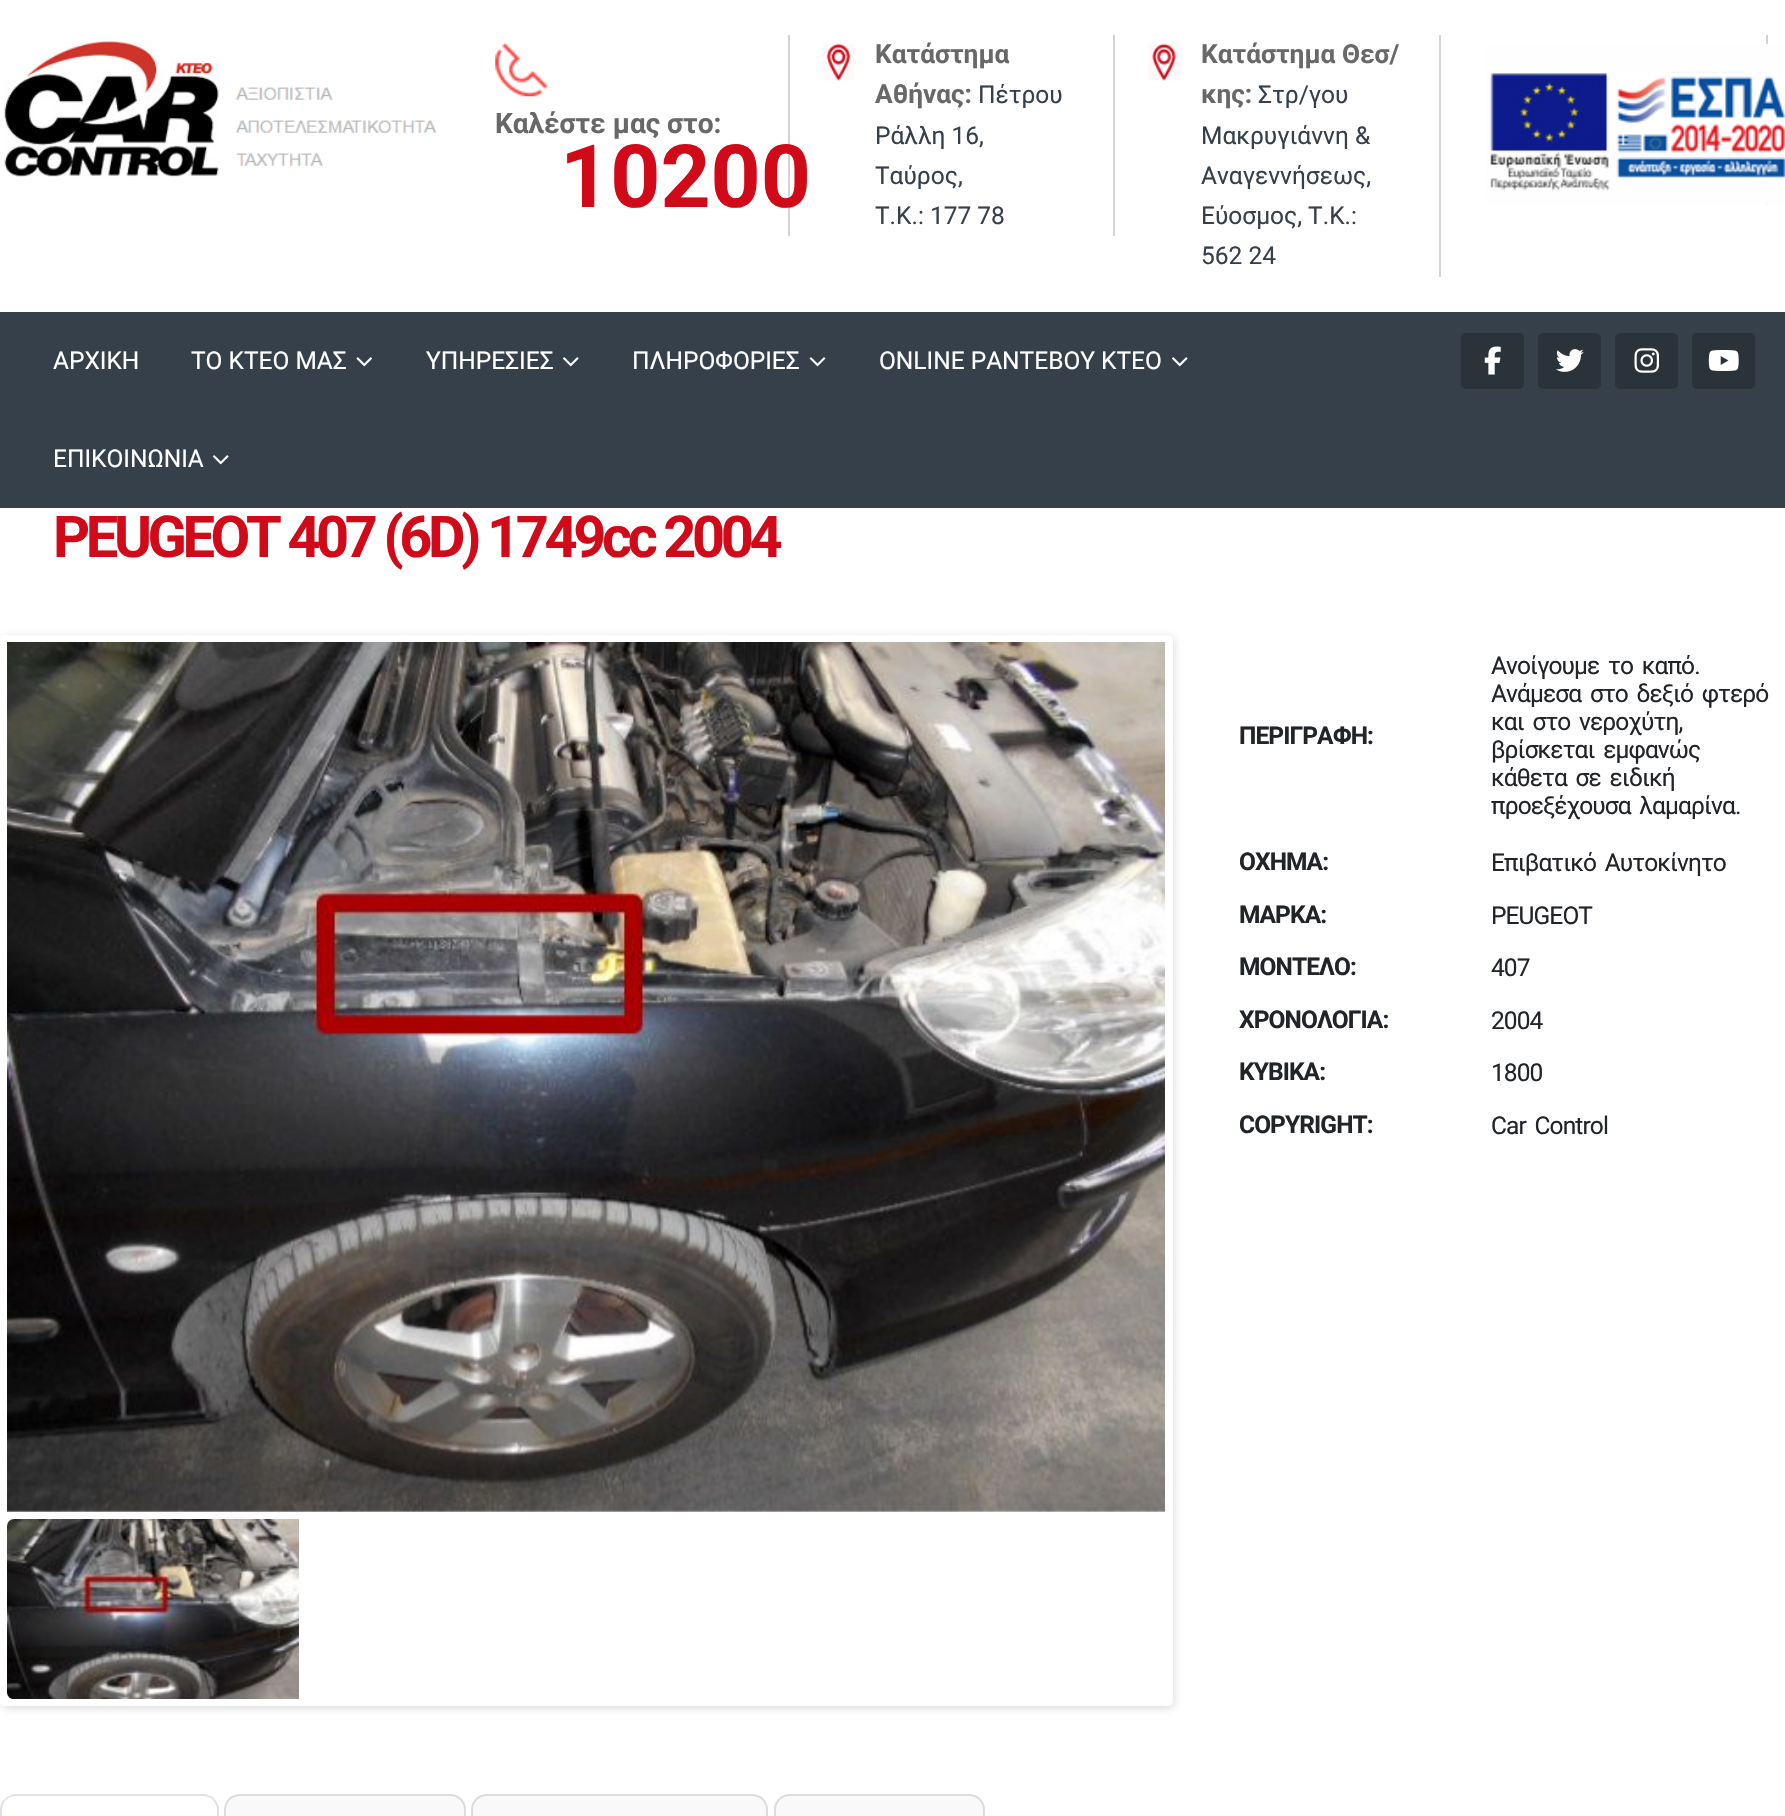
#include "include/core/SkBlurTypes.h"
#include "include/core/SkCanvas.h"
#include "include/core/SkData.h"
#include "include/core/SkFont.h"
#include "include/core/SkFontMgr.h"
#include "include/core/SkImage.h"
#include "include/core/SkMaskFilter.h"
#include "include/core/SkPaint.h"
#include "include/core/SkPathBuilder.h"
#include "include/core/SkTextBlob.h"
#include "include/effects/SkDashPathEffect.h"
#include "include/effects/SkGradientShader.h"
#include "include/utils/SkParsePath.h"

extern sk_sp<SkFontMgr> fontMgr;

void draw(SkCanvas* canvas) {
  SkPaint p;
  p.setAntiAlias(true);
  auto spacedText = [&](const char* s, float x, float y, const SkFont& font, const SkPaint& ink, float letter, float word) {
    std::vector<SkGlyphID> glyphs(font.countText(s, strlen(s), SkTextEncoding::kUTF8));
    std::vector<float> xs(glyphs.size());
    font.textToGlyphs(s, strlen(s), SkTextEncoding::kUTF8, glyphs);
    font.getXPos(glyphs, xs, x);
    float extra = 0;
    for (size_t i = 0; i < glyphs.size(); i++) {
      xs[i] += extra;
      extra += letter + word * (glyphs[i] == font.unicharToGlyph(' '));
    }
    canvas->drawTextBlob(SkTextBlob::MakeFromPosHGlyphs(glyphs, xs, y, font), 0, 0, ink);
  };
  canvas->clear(SK_ColorWHITE);
  canvas->drawImageRect(SkImages::DeferredFromEncodedData(SkData::MakeFromFileName("images/1.png")), SkRect::MakeLTRB(4, 41, 437, 177), SkSamplingOptions());
  p.setColor(SkColorSetRGB(211, 211, 211));
  canvas->drawRect(SkRect::MakeLTRB(788, 35, 790, 236), p);
  canvas->drawImageRect(SkImages::DeferredFromEncodedData(SkData::MakeFromFileName("images/2.png")), SkRect::MakeLTRB(495, 43, 548, 97), SkSamplingOptions());
  canvas->drawRect(SkRect::MakeLTRB(1113, 35, 1115, 236), p);
  canvas->drawImageRect(SkImages::DeferredFromEncodedData(SkData::MakeFromFileName("images/3.png")), SkRect::MakeLTRB(823, 43, 855, 81), SkSamplingOptions());
  canvas->drawRect(SkRect::MakeLTRB(1439, 35, 1441, 277), p);
  canvas->drawImageRect(SkImages::DeferredFromEncodedData(SkData::MakeFromFileName("images/4.png")), SkRect::MakeLTRB(1148, 43, 1180, 81), SkSamplingOptions());
  canvas->drawRect(SkRect::MakeLTRB(1766, 35, 1768, 205), p);
  canvas->drawImageRect(SkImages::DeferredFromEncodedData(SkData::MakeFromFileName("images/5.png")), SkRect::MakeLTRB(1486, 43, 1785, 205), SkSamplingOptions());
  p.setColor(SkColorSetRGB(54, 64, 75));
  canvas->drawRect(SkRect::MakeLTRB(0, 312, 1785, 508), p);
  canvas->drawImageRect(SkImages::DeferredFromEncodedData(SkData::MakeFromFileName("images/6.png")), SkRect::MakeLTRB(356, 357, 372, 367), SkSamplingOptions());
  canvas->drawImageRect(SkImages::DeferredFromEncodedData(SkData::MakeFromFileName("images/7.png")), SkRect::MakeLTRB(563, 357, 579, 367), SkSamplingOptions());
  canvas->drawImageRect(SkImages::DeferredFromEncodedData(SkData::MakeFromFileName("images/8.png")), SkRect::MakeLTRB(809, 357, 826, 367), SkSamplingOptions());
  canvas->drawImageRect(SkImages::DeferredFromEncodedData(SkData::MakeFromFileName("images/7.png")), SkRect::MakeLTRB(1172, 357, 1188, 367), SkSamplingOptions());
  canvas->drawImageRect(SkImages::DeferredFromEncodedData(SkData::MakeFromFileName("images/7.png")), SkRect::MakeLTRB(213, 455, 229, 465), SkSamplingOptions());
  p.setColor(SkColorSetRGB(42, 50, 58));
  canvas->drawRoundRect(SkRect::MakeLTRB(1461, 333, 1524, 389), 5, 5, p);
  canvas->drawImageRect(SkImages::DeferredFromEncodedData(SkData::MakeFromFileName("images/9.png")), SkRect::MakeLTRB(1484, 346, 1501, 375), SkSamplingOptions());
  canvas->drawRoundRect(SkRect::MakeLTRB(1538, 333, 1601, 389), 5, 5, p);
  canvas->drawImageRect(SkImages::DeferredFromEncodedData(SkData::MakeFromFileName("images/10.png")), SkRect::MakeLTRB(1556, 349, 1584, 372), SkSamplingOptions());
  canvas->drawRoundRect(SkRect::MakeLTRB(1615, 333, 1678, 389), 5, 5, p);
  canvas->drawImageRect(SkImages::DeferredFromEncodedData(SkData::MakeFromFileName("images/11.png")), SkRect::MakeLTRB(1634, 348, 1659, 373), SkSamplingOptions());
  canvas->drawRoundRect(SkRect::MakeLTRB(1692, 333, 1755, 389), 5, 5, p);
  canvas->drawImageRect(SkImages::DeferredFromEncodedData(SkData::MakeFromFileName("images/12.png")), SkRect::MakeLTRB(1708, 350, 1739, 371), SkSamplingOptions());
  canvas->save();
  canvas->clipPath(SkPathBuilder(SkPathFillType::kEvenOdd).moveTo(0, 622).lineTo(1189, 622).lineTo(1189, 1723).lineTo(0, 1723).close().moveTo(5, 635).lineTo(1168, 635).cubicTo(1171, 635, 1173, 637, 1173, 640).lineTo(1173, 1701).cubicTo(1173, 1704, 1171, 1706, 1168, 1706).lineTo(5, 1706).cubicTo(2, 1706, 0, 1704, 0, 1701).lineTo(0, 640).cubicTo(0, 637, 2, 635, 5, 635).close().detach(), true);
  p.setColor(SkColorSetARGB(191, 204, 204, 204));
  p.setMaskFilter(SkMaskFilter::MakeBlur(kNormal_SkBlurStyle, 4.5f));
  canvas->drawRoundRect(SkRect::MakeLTRB(2, 637, 1174, 1708), 5, 5, p);
  p.setMaskFilter(nullptr);
  canvas->restore();
  p.setStyle(SkPaint::kStroke_Style);
  p.setStrokeWidth(7);
  p.setColor(SK_ColorWHITE);
  canvas->drawRoundRect(SkRect::MakeLTRB(3.5f, 638.5f, 1169.5f, 1702.5f), 1.5f, 1.5f, p);
  canvas->drawImageRect(SkImages::DeferredFromEncodedData(SkData::MakeFromFileName("images/13.png")), SkRect::MakeLTRB(7, 642, 1165, 1512), SkSamplingOptions());
  canvas->drawImageRect(SkImages::DeferredFromEncodedData(SkData::MakeFromFileName("images/14.png")), SkRect::MakeLTRB(7, 1519, 299, 1699), SkSamplingOptions());
  p.setStyle(SkPaint::kFill_Style);
  p.setColor(SkColorSetRGB(222, 226, 230));
  canvas->drawPath(SkPathBuilder().moveTo(16, 1794).cubicTo(12, 1794, 8, 1796, 5, 1799).lineTo(6, 1800).cubicTo(9, 1797, 12, 1796, 16, 1796).lineTo(203, 1796).cubicTo(207, 1796, 210, 1797, 213, 1800).lineTo(214, 1798).cubicTo(211, 1796, 207, 1794, 203, 1794).close().detach(), p);
  canvas->drawPath(SkPathBuilder().moveTo(214, 1798).cubicTo(216, 1801, 218, 1804, 219, 1807).lineTo(219, 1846).lineTo(216, 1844).lineTo(217, 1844).lineTo(217, 1810).cubicTo(217, 1806, 215, 1802, 213, 1800).close().detach(), p);
  canvas->drawPath(SkPathBuilder().moveTo(0, 1810).lineTo(0, 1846).lineTo(2, 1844).lineTo(2, 1810).cubicTo(2, 1806, 4, 1802, 6, 1800).lineTo(5, 1799).cubicTo(2, 1801, 0, 1805, 0, 1810).close().detach(), p);
  p.setColor(SkColorSetRGB(249, 249, 249));
  canvas->drawPath(SkPathBuilder().moveTo(240, 1795).lineTo(450, 1795).cubicTo(458.5f, 1795, 465, 1801.5f, 465, 1810).lineTo(465, 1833).lineTo(225, 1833).lineTo(225, 1810).cubicTo(225, 1801.5f, 231.5f, 1795, 240, 1795).close().detach(), p);
  p.setStyle(SkPaint::kStroke_Style);
  p.setStrokeWidth(2);
  p.setColor(SkColorSetRGB(220, 220, 220));
  canvas->drawPath(SkPathBuilder().moveTo(240, 1795).lineTo(450, 1795).cubicTo(458.5f, 1795, 465, 1801.5f, 465, 1810).lineTo(465, 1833).lineTo(225, 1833).lineTo(225, 1810).cubicTo(225, 1801.5f, 231.5f, 1795, 240, 1795).close().detach(), p);
  p.setStyle(SkPaint::kFill_Style);
  p.setColor(SkColorSetRGB(249, 249, 249));
  canvas->drawPath(SkPathBuilder().moveTo(487, 1795).lineTo(752, 1795).cubicTo(760.5f, 1795, 767, 1801.5f, 767, 1810).lineTo(767, 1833).lineTo(472, 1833).lineTo(472, 1810).cubicTo(472, 1801.5f, 478.5f, 1795, 487, 1795).close().detach(), p);
  p.setStyle(SkPaint::kStroke_Style);
  p.setColor(SkColorSetRGB(220, 220, 220));
  canvas->drawPath(SkPathBuilder().moveTo(487, 1795).lineTo(752, 1795).cubicTo(760.5f, 1795, 767, 1801.5f, 767, 1810).lineTo(767, 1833).lineTo(472, 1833).lineTo(472, 1810).cubicTo(472, 1801.5f, 478.5f, 1795, 487, 1795).close().detach(), p);
  p.setStyle(SkPaint::kFill_Style);
  p.setColor(SkColorSetRGB(249, 249, 249));
  canvas->drawPath(SkPathBuilder().moveTo(790, 1795).lineTo(969, 1795).cubicTo(977.5f, 1795, 984, 1801.5f, 984, 1810).lineTo(984, 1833).lineTo(775, 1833).lineTo(775, 1810).cubicTo(775, 1801.5f, 781.5f, 1795, 790, 1795).close().detach(), p);
  p.setStyle(SkPaint::kStroke_Style);
  p.setColor(SkColorSetRGB(220, 220, 220));
  canvas->drawPath(SkPathBuilder().moveTo(790, 1795).lineTo(969, 1795).cubicTo(977.5f, 1795, 984, 1801.5f, 984, 1810).lineTo(984, 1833).lineTo(775, 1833).lineTo(775, 1810).cubicTo(775, 1801.5f, 781.5f, 1795, 790, 1795).close().detach(), p);
  SkFont font1(fontMgr->matchFamilyStyle("Roboto", SkFontStyle::Bold()), 28);
  font1.setSubpixel(true);
  p.setStyle(SkPaint::kFill_Style);
  p.setColor(SkColorSetRGB(104, 104, 104));
  canvas->drawString("Καλέστε μας στο:", 495, 133, font1, p);
  SkFont font2(fontMgr->matchFamilyStyle("Roboto", SkFontStyle::Bold()), 87.5f);
  font2.setSubpixel(true);
  p.setColor(SkColorSetRGB(208, 10, 25));
  canvas->drawString("10200", 560, 207, font2, p);
  SkFont font3(fontMgr->matchFamilyStyle("Roboto", SkFontStyle::Bold()), 26.25f);
  font3.setSubpixel(true);
  p.setColor(SkColorSetRGB(104, 104, 104));
  canvas->drawString("Κατάστημα", 875, 63, font3, p);
  canvas->drawString("Αθήνας:", 875, 103, font3, p);
  SkFont font4(fontMgr->matchFamilyStyle("Roboto", SkFontStyle::Normal()), 24.5f);
  font4.setSubpixel(true);
  p.setColor(SkColorSetRGB(54, 64, 75));
  canvas->drawString("Πέτρου", 978, 103, font4, p);
  canvas->drawString("Ράλλη 16,", 875, 144, font4, p);
  canvas->drawString("Ταύρος,", 875, 184, font4, p);
  canvas->drawString("Τ.Κ.: 177 78", 875, 224, font4, p);
  p.setColor(SkColorSetRGB(104, 104, 104));
  canvas->drawString("Κατάστημα Θεσ/", 1201, 63, font3, p);
  canvas->drawString("κης:", 1201, 103, font3, p);
  p.setColor(SkColorSetRGB(54, 64, 75));
  canvas->drawString("Στρ/γου", 1258, 103, font4, p);
  canvas->drawString("Μακρυγιάννη &", 1201, 144, font4, p);
  canvas->drawString("Αναγεννήσεως,", 1201, 184, font4, p);
  canvas->drawString("Εύοσμος, Τ.Κ.:", 1201, 224, font4, p);
  canvas->drawString("562 24", 1201, 264, font4, p);
  p.setColor(SK_ColorWHITE);
  canvas->drawString("ΑΡΧΙΚΗ", 53, 369, font4, p);
  canvas->drawString("ΤΟ ΚΤΕΟ ΜΑΣ", 191, 369, font4, p);
  canvas->drawString("ΥΠΗΡΕΣΙΕΣ", 426, 369, font4, p);
  canvas->drawString("ΠΛΗΡΟΦΟΡΙΕΣ", 632, 369, font4, p);
  canvas->drawString("ONLINE ΡΑΝΤΕΒΟΥ KTEO", 879, 369, font4, p);
  canvas->drawString("ΕΠΙΚΟΙΝΩΝΙΑ", 53, 467, font4, p);
  SkFont font5(fontMgr->matchFamilyStyle("Roboto", SkFontStyle::Bold()), 57.75f);
  font5.setSubpixel(true);
  p.setColor(SkColorSetRGB(208, 10, 25));
  spacedText("PEUGEOT 407 (6D) 1749cc 2004", 53, 557, font5, p, -4.4f, 0);
  SkFont font6(fontMgr->matchFamilyStyle("Roboto", SkFontStyle::Bold()), 24.5f);
  font6.setSubpixel(true);
  p.setColor(SkColorSetRGB(33, 37, 41));
  spacedText("ΠΕΡΙΓΡΑΦΗ:", 1239, 744, font6, p, -0.9f, 0);
  spacedText("Ανοίγουμε το καπό.", 1491, 674, font4, p, -0.9f, 3.5f);
  spacedText("Ανάμεσα στο δεξιό φτερό", 1491, 702, font4, p, -0.9f, 3.5f);
  spacedText("και στο νεροχύτη,", 1491, 730, font4, p, -0.9f, 3.5f);
  spacedText("βρίσκεται εμφανώς", 1491, 758, font4, p, -0.9f, 3.5f);
  spacedText("κάθετα σε ειδική", 1491, 786, font4, p, -0.9f, 3.5f);
  spacedText("προεξέχουσα λαμαρίνα.", 1491, 814, font4, p, -0.9f, 3.5f);
  spacedText("ΟΧΗΜΑ:", 1239, 870, font6, p, -0.9f, 0);
  spacedText("Επιβατικό Αυτοκίνητο", 1491, 871, font4, p, -0.9f, 3.5f);
  spacedText("ΜΑΡΚΑ:", 1239, 923, font6, p, -0.9f, 0);
  spacedText("PEUGEOT", 1491, 924, font4, p, -0.9f, 0);
  spacedText("ΜΟΝΤΕΛΟ:", 1239, 975, font6, p, -0.9f, 0);
  spacedText("407", 1491, 976, font4, p, -0.9f, 0);
  spacedText("ΧΡΟΝΟΛΟΓΙΑ:", 1239, 1028, font6, p, -0.9f, 0);
  spacedText("2004", 1491, 1029, font4, p, -0.9f, 0);
  spacedText("ΚΥΒΙΚΑ:", 1239, 1080, font6, p, -0.9f, 0);
  spacedText("1800", 1491, 1081, font4, p, -0.9f, 0);
  spacedText("COPYRIGHT:", 1239, 1133, font6, p, -0.9f, 0);
  spacedText("Car Control", 1491, 1134, font4, p, -0.9f, 3.5f);
}
